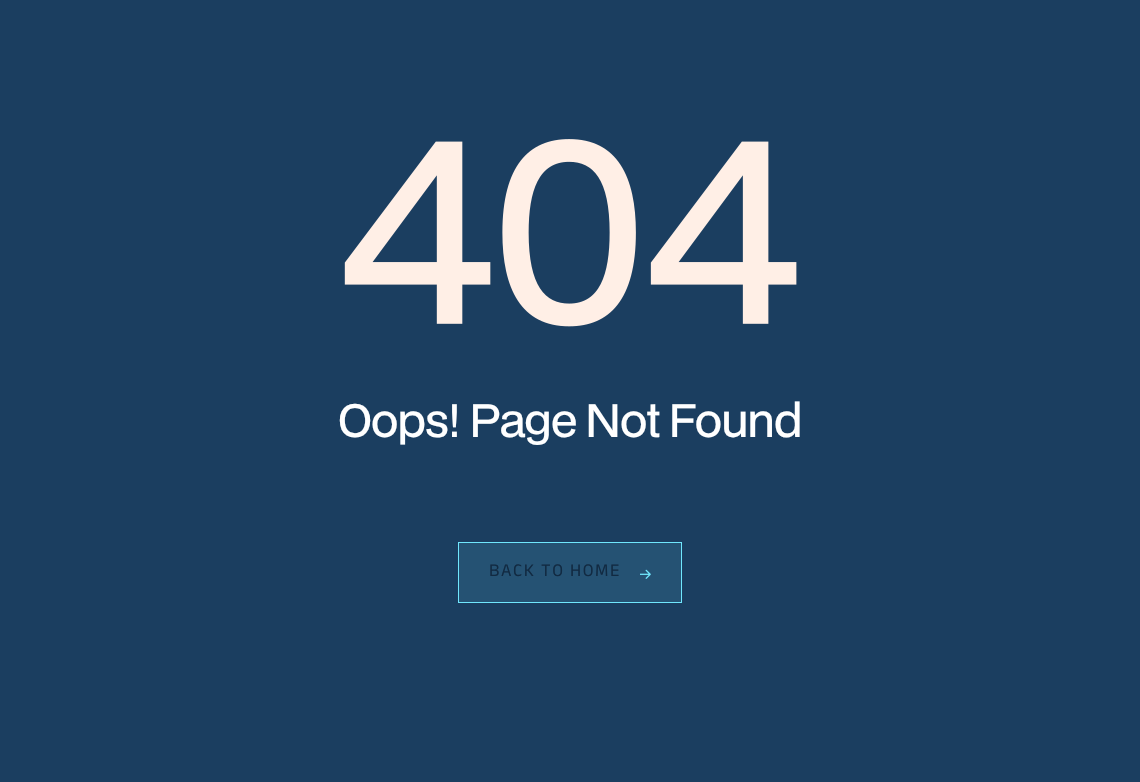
#include "include/core/SkBlurTypes.h"
#include "include/core/SkCanvas.h"
#include "include/core/SkData.h"
#include "include/core/SkFont.h"
#include "include/core/SkFontMgr.h"
#include "include/core/SkImage.h"
#include "include/core/SkMaskFilter.h"
#include "include/core/SkPaint.h"
#include "include/core/SkPathBuilder.h"
#include "include/core/SkTextBlob.h"
#include "include/effects/SkDashPathEffect.h"
#include "include/effects/SkGradientShader.h"
#include "include/utils/SkParsePath.h"

extern sk_sp<SkFontMgr> fontMgr;

void draw(SkCanvas* canvas) {
  SkPaint p;
  p.setAntiAlias(true);
  auto spacedText = [&](const char* s, float x, float y, const SkFont& font, const SkPaint& ink, float letter, float word) {
    std::vector<SkGlyphID> glyphs(font.countText(s, strlen(s), SkTextEncoding::kUTF8));
    std::vector<float> xs(glyphs.size());
    font.textToGlyphs(s, strlen(s), SkTextEncoding::kUTF8, glyphs);
    font.getXPos(glyphs, xs, x);
    float extra = 0;
    for (size_t i = 0; i < glyphs.size(); i++) {
      xs[i] += extra;
      extra += letter + word * (glyphs[i] == font.unicharToGlyph(' '));
    }
    canvas->drawTextBlob(SkTextBlob::MakeFromPosHGlyphs(glyphs, xs, y, font), 0, 0, ink);
  };
  canvas->clear(SkColorSetRGB(27, 62, 96));
  canvas->drawImageRect(SkImages::DeferredFromEncodedData(SkData::MakeFromFileName("images/1.png")), SkRect::MakeLTRB(344, 139, 797, 327), SkSamplingOptions());
  p.setStyle(SkPaint::kStroke_Style);
  p.setStrokeWidth(1);
  p.setColor(SkColorSetRGB(112, 231, 253));
  canvas->drawRect(SkRect::MakeLTRB(458.5f, 542.5f, 681.5f, 602.5f), p);
  p.setStyle(SkPaint::kFill_Style);
  p.setColor(SkColorSetRGB(37, 82, 115));
  canvas->drawRect(SkRect::MakeLTRB(459, 543, 681, 602), p);
  canvas->drawImageRect(SkImages::DeferredFromEncodedData(SkData::MakeFromFileName("images/2.png")), SkRect::MakeLTRB(640, 569, 651, 579), SkSamplingOptions());
  SkFont font1(fontMgr->matchFamilyStyle("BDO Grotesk", SkFontStyle::Normal()), 45);
  font1.setSubpixel(true);
  p.setColor(SK_ColorWHITE);
  spacedText("Oops! Page Not Found", 338, 437, font1, p, -1.35f, 0);
  SkFont font2(fontMgr->matchFamilyStyle("Anek Odia", SkFontStyle(500, SkFontStyle::kNormal_Width, SkFontStyle::kUpright_Slant)), 18);
  font2.setSubpixel(true);
  p.setColor(SkColorSetRGB(17, 42, 66));
  spacedText("BACK TO HOME", 489, 576, font2, p, 1.6f, 0);
}
